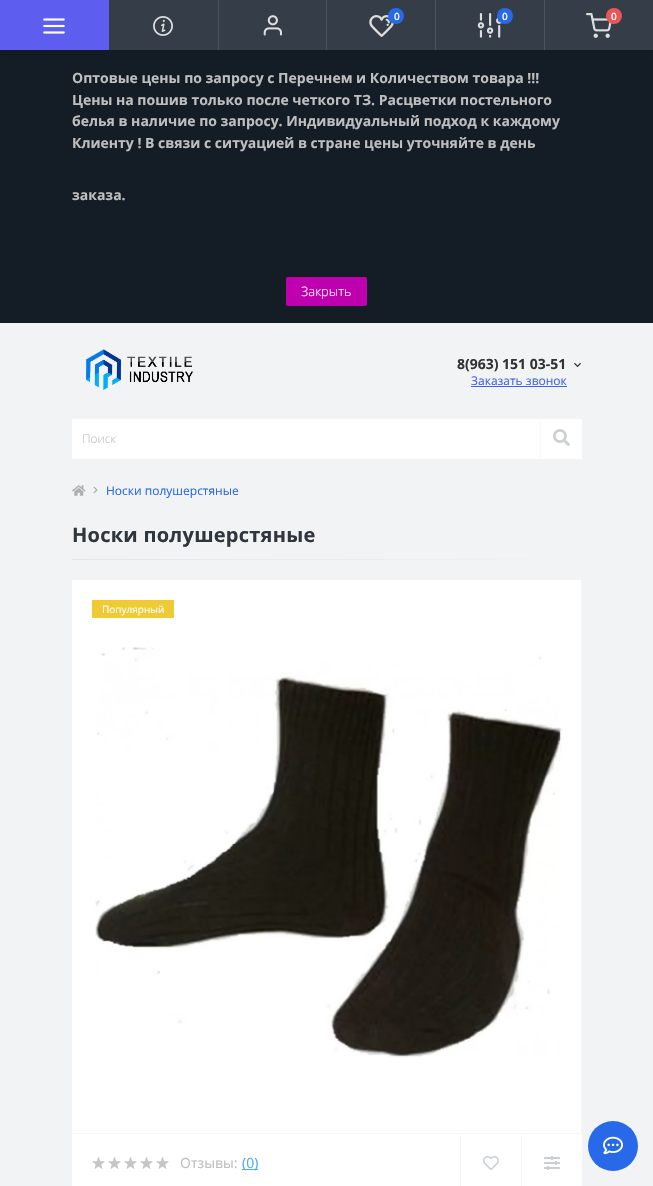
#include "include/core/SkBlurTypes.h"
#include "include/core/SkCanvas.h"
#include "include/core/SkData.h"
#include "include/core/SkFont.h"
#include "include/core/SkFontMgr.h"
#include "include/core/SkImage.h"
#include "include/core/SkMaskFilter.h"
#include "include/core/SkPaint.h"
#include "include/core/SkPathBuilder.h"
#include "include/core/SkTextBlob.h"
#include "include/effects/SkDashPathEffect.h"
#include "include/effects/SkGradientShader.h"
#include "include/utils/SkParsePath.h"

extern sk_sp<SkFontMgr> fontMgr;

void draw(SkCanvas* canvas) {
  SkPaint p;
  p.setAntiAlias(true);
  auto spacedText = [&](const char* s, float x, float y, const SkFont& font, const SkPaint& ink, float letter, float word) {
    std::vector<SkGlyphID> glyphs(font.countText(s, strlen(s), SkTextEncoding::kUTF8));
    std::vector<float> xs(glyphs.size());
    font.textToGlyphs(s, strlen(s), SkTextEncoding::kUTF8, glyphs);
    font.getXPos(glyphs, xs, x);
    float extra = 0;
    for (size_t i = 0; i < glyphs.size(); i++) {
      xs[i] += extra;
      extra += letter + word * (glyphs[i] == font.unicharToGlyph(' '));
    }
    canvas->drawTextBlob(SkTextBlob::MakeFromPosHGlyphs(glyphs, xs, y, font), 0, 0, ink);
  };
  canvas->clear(SkColorSetRGB(242, 243, 245));
  p.setColor(SkColorSetRGB(20, 29, 38));
  canvas->drawRect(SkRect::MakeLTRB(0, 50, 653, 323), p);
  p.setColor(SkColorSetARGB(26, 0, 0, 0));
  p.setMaskFilter(SkMaskFilter::MakeBlur(kNormal_SkBlurStyle, 7.5f));
  canvas->drawRect(SkRect::MakeLTRB(0, 4, 653, 54), p);
  p.setMaskFilter(nullptr);
  p.setColor(SkColorSetRGB(53, 62, 72));
  canvas->drawRect(SkRect::MakeLTRB(109, 0, 653, 50), p);
  p.setColor(SkColorSetRGB(93, 93, 239));
  canvas->drawRect(SkRect::MakeLTRB(0, 0, 109, 50), p);
  canvas->drawImageRect(SkImages::DeferredFromEncodedData(SkData::MakeFromFileName("images/1.png")), SkRect::MakeLTRB(43, 18, 65, 34), SkSamplingOptions());
  canvas->drawImageRect(SkImages::DeferredFromEncodedData(SkData::MakeFromFileName("images/2.png")), SkRect::MakeLTRB(153, 16, 173, 36), SkSamplingOptions());
  p.setColor(SkColorSetRGB(73, 81, 90));
  canvas->drawRect(SkRect::MakeLTRB(218, 0, 219, 50), p);
  canvas->drawImageRect(SkImages::DeferredFromEncodedData(SkData::MakeFromFileName("images/3.png")), SkRect::MakeLTRB(263, 15, 282, 36), SkSamplingOptions());
  canvas->drawRect(SkRect::MakeLTRB(326, 0, 327, 50), p);
  canvas->drawImageRect(SkImages::DeferredFromEncodedData(SkData::MakeFromFileName("images/4.png")), SkRect::MakeLTRB(369, 15, 394, 37), SkSamplingOptions());
  p.setColor(SkColorSetRGB(39, 105, 233));
  canvas->drawCircle(396, 16, 8, p);
  p.setColor(SkColorSetRGB(73, 81, 90));
  canvas->drawRect(SkRect::MakeLTRB(435, 0, 436, 50), p);
  canvas->drawImageRect(SkImages::DeferredFromEncodedData(SkData::MakeFromFileName("images/5.png")), SkRect::MakeLTRB(477, 13, 502, 38), SkSamplingOptions());
  p.setColor(SkColorSetRGB(39, 105, 233));
  canvas->drawCircle(505, 16, 8, p);
  p.setColor(SkColorSetRGB(73, 81, 90));
  canvas->drawRect(SkRect::MakeLTRB(544, 0, 545, 50), p);
  canvas->drawImageRect(SkImages::DeferredFromEncodedData(SkData::MakeFromFileName("images/6.png")), SkRect::MakeLTRB(586, 13, 612, 38), SkSamplingOptions());
  p.setColor(SkColorSetRGB(235, 87, 87));
  canvas->drawCircle(614, 16, 8, p);
  p.setColor(SkColorSetRGB(190, 0, 175));
  canvas->drawRoundRect(SkRect::MakeLTRB(286, 277, 367, 306), 2, 2, p);
  canvas->drawImageRect(SkImages::DeferredFromEncodedData(SkData::MakeFromFileName("images/7.png")), SkRect::MakeLTRB(86, 349, 194, 391), SkSamplingOptions());
  canvas->drawImageRect(SkImages::DeferredFromEncodedData(SkData::MakeFromFileName("images/8.png")), SkRect::MakeLTRB(574, 363, 581, 367), SkSamplingOptions());
  p.setColor(SkColorSetRGB(61, 100, 238));
  canvas->drawRect(SkRect::MakeLTRB(471, 386, 567, 387), p);
  p.setColor(SK_ColorWHITE);
  canvas->drawRect(SkRect::MakeLTRB(72, 419, 582, 459), p);
  p.setColor(SkColorSetRGB(249, 249, 249));
  canvas->drawPath(SkPathBuilder().moveTo(540, 459).lineTo(540, 419).lineTo(541, 420).lineTo(541, 458).close().detach(), p);
  canvas->drawImageRect(SkImages::DeferredFromEncodedData(SkData::MakeFromFileName("images/9.png")), SkRect::MakeLTRB(553, 429, 570, 446), SkSamplingOptions());
  canvas->drawImageRect(SkImages::DeferredFromEncodedData(SkData::MakeFromFileName("images/10.png")), SkRect::MakeLTRB(72, 485, 86, 496), SkSamplingOptions());
  canvas->drawImageRect(SkImages::DeferredFromEncodedData(SkData::MakeFromFileName("images/11.png")), SkRect::MakeLTRB(93, 486, 98, 494), SkSamplingOptions());
  {
    const SkColor colors[] = {SkColorSetRGB(229, 229, 229), SkColorSetRGB(243, 243, 243)};
    const float stops[] = {0, 1};
    const SkPoint ends[] = {{72, 560}, {582, 559}};
    p.setShader(SkGradientShader::MakeLinear(ends, colors, stops, 2, SkTileMode::kClamp));
    p.setAlpha(255);
  }
  canvas->drawRect(SkRect::MakeLTRB(72, 559, 564, 560), p);
  p.setShader(nullptr);
  p.setColor(SK_ColorWHITE);
  canvas->drawRect(SkRect::MakeLTRB(72, 580, 582, 1186), p);
  p.setColor(SkColorSetRGB(246, 246, 246));
  canvas->drawRect(SkRect::MakeLTRB(581, 580, 582, 1133), p);
  p.setColor(SkColorSetRGB(238, 202, 53));
  canvas->drawRect(SkRect::MakeLTRB(92, 600, 174, 618), p);
  canvas->drawImageRect(SkImages::DeferredFromEncodedData(SkData::MakeFromFileName("images/12.png")), SkRect::MakeLTRB(95, 647, 562, 1058), SkSamplingOptions());
  p.setColor(SkColorSetRGB(246, 246, 246));
  canvas->drawRect(SkRect::MakeLTRB(72, 1133, 582, 1134), p);
  canvas->drawImageRect(SkImages::DeferredFromEncodedData(SkData::MakeFromFileName("images/13.png")), SkRect::MakeLTRB(92, 1157, 105, 1169), SkSamplingOptions());
  canvas->drawImageRect(SkImages::DeferredFromEncodedData(SkData::MakeFromFileName("images/13.png")), SkRect::MakeLTRB(108, 1157, 121, 1169), SkSamplingOptions());
  canvas->drawImageRect(SkImages::DeferredFromEncodedData(SkData::MakeFromFileName("images/13.png")), SkRect::MakeLTRB(124, 1157, 137, 1169), SkSamplingOptions());
  canvas->drawImageRect(SkImages::DeferredFromEncodedData(SkData::MakeFromFileName("images/13.png")), SkRect::MakeLTRB(140, 1157, 153, 1169), SkSamplingOptions());
  canvas->drawImageRect(SkImages::DeferredFromEncodedData(SkData::MakeFromFileName("images/13.png")), SkRect::MakeLTRB(156, 1157, 169, 1169), SkSamplingOptions());
  p.setColor(SkColorSetRGB(80, 168, 255));
  canvas->drawRect(SkRect::MakeLTRB(242, 1169, 258, 1170), p);
  p.setColor(SkColorSetRGB(246, 246, 246));
  canvas->drawRect(SkRect::MakeLTRB(460, 1135, 461, 1186), p);
  canvas->drawImageRect(SkImages::DeferredFromEncodedData(SkData::MakeFromFileName("images/14.png")), SkRect::MakeLTRB(483, 1156, 499, 1170), SkSamplingOptions());
  canvas->drawRect(SkRect::MakeLTRB(521, 1135, 522, 1186), p);
  canvas->drawImageRect(SkImages::DeferredFromEncodedData(SkData::MakeFromFileName("images/15.png")), SkRect::MakeLTRB(544, 1156, 560, 1170), SkSamplingOptions());
  p.setColor(SkColorSetRGB(39, 105, 233));
  canvas->drawCircle(613, 1146, 25, p);
  canvas->drawImageRect(SkImages::DeferredFromEncodedData(SkData::MakeFromFileName("images/16.png")), SkRect::MakeLTRB(603, 1136, 623, 1155), SkSamplingOptions());
  SkFont font1(fontMgr->matchFamilyStyle("Open Sans", SkFontStyle(600, SkFontStyle::kNormal_Width, SkFontStyle::kUpright_Slant)), 10);
  font1.setSubpixel(true);
  p.setColor(SK_ColorWHITE);
  canvas->drawString("0", 394, 20, font1, p);
  canvas->drawString("0", 502, 20, font1, p);
  canvas->drawString("0", 611, 20, font1, p);
  SkFont font2(fontMgr->matchFamilyStyle("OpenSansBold", SkFontStyle::Bold()), 14);
  font2.setSubpixel(true);
  p.setColor(SkColorSetRGB(190, 190, 190));
  canvas->drawString("Оптовые цены по запросу с Перечнем и Количеством товара !!!", 72, 83, font2, p);
  canvas->drawString("Цены на пошив только после четкого ТЗ. Расцветки постельного", 72, 105, font2, p);
  canvas->drawString("белья в наличие по запросу. Индивидуальный подход к каждому", 72, 126, font2, p);
  canvas->drawString("Клиенту ! В связи с ситуацией в стране цены уточняйте в день", 72, 148, font2, p);
  canvas->drawString("заказа.", 72, 200, font2, p);
  SkFont font3(fontMgr->matchFamilyStyle("Open Sans", SkFontStyle(300, SkFontStyle::kNormal_Width, SkFontStyle::kUpright_Slant)), 13);
  font3.setSubpixel(true);
  p.setColor(SK_ColorWHITE);
  canvas->drawString("Закрыть", 301, 296, font3, p);
  p.setColor(SkColorSetRGB(51, 51, 51));
  canvas->drawString("8(963) 151 03-51", 457, 369, font2, p);
  SkFont font4(fontMgr->matchFamilyStyle("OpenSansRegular", SkFontStyle::Normal()), 12);
  font4.setSubpixel(true);
  p.setColor(SkColorSetRGB(61, 100, 238));
  canvas->drawString("Заказать звонок", 471, 385, font4, p);
  SkFont font5(fontMgr->matchFamilyStyle("Open Sans", SkFontStyle(300, SkFontStyle::kNormal_Width, SkFontStyle::kUpright_Slant)), 12);
  font5.setSubpixel(true);
  p.setColor(SkColorSetRGB(190, 190, 190));
  canvas->drawString("Поиск", 82, 443, font5, p);
  p.setColor(SkColorSetRGB(39, 105, 233));
  canvas->drawString("Носки полушерстяные", 106, 495, font4, p);
  SkFont font6(fontMgr->matchFamilyStyle("OpenSansBold", SkFontStyle::Bold()), 20);
  font6.setSubpixel(true);
  p.setColor(SkColorSetRGB(48, 54, 61));
  spacedText("Носки полушерстяные", 72, 542, font6, p, 0.25f, 0);
  SkFont font7(fontMgr->matchFamilyStyle("OpenSansRegular", SkFontStyle::Normal()), 10);
  font7.setSubpixel(true);
  p.setColor(SK_ColorWHITE);
  canvas->drawString("Популярный", 102, 613, font7, p);
  SkFont font8(fontMgr->matchFamilyStyle("OpenSansRegular", SkFontStyle::Normal()), 14);
  font8.setSubpixel(true);
  p.setColor(SkColorSetRGB(190, 190, 190));
  canvas->drawString("Отзывы:", 180, 1168, font8, p);
  p.setColor(SkColorSetRGB(80, 168, 255));
  canvas->drawString("(0)", 242, 1168, font8, p);
}
